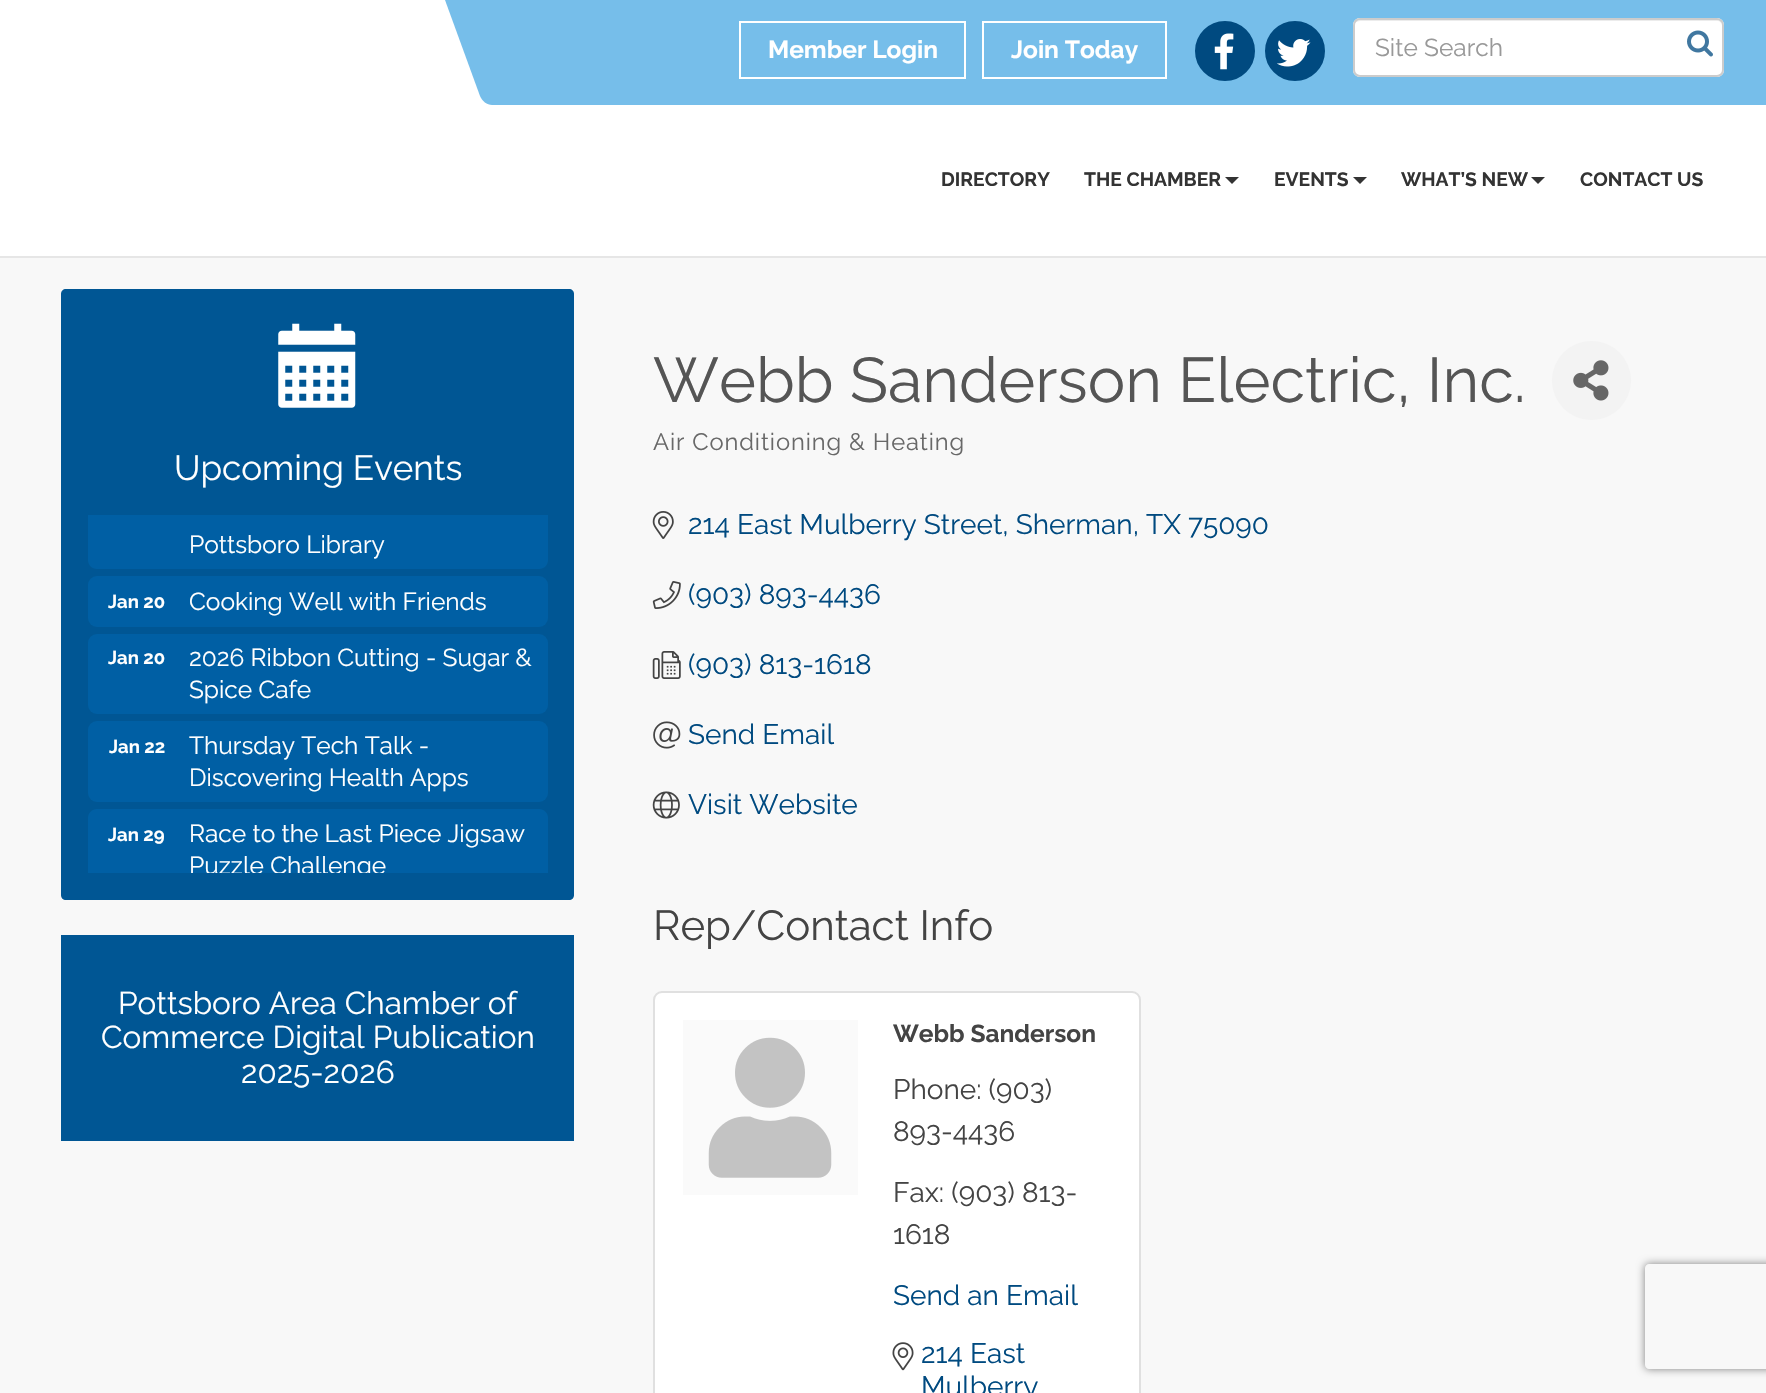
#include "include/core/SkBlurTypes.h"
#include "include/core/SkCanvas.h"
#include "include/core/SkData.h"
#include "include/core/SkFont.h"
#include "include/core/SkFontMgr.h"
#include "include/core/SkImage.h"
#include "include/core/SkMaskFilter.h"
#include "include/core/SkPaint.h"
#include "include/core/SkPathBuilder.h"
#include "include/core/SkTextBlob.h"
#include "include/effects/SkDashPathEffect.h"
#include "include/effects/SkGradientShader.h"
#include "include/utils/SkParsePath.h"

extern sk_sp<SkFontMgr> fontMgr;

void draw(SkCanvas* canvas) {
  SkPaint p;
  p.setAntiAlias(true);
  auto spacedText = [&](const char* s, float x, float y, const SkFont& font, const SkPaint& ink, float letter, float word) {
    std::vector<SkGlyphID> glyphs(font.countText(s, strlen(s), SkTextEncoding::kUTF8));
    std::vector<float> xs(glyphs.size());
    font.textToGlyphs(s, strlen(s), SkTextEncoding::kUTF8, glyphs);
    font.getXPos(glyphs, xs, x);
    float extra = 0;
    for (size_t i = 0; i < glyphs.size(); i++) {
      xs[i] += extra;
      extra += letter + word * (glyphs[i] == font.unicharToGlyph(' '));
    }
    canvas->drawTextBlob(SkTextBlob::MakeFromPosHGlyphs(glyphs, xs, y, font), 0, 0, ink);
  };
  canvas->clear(SkColorSetRGB(248, 248, 248));
  p.setColor(SK_ColorWHITE);
  canvas->drawRect(SkRect::MakeLTRB(0, 0, 1766, 256), p);
  p.setColor(SkColorSetRGB(230, 230, 230));
  canvas->drawRect(SkRect::MakeLTRB(0, 256, 1766, 258), p);
  p.setColor(SkColorSetRGB(118, 190, 234));
  canvas->drawPath(SkPathBuilder().moveTo(445, 0).lineTo(1704, 0).lineTo(1742, 105).lineTo(492, 105).cubicTo(487, 105, 482, 101, 480, 96).close().detach(), p);
  p.setStyle(SkPaint::kStroke_Style);
  p.setStrokeWidth(2);
  p.setColor(SK_ColorWHITE);
  canvas->drawRect(SkRect::MakeLTRB(740, 22, 965, 78), p);
  canvas->drawRect(SkRect::MakeLTRB(983, 22, 1166, 78), p);
  p.setStyle(SkPaint::kFill_Style);
  p.setColor(SkColorSetRGB(0, 74, 128));
  canvas->drawCircle(1225, 51, 29, p);
  p.setStyle(SkPaint::kStroke_Style);
  canvas->drawCircle(1225, 51, 29, p);
  canvas->drawImageRect(SkImages::DeferredFromEncodedData(SkData::MakeFromFileName("images/1.png")), SkRect::MakeLTRB(1214, 33, 1234, 70), SkSamplingOptions());
  p.setStyle(SkPaint::kFill_Style);
  canvas->drawCircle(1295, 51, 29, p);
  p.setStyle(SkPaint::kStroke_Style);
  canvas->drawCircle(1295, 51, 29, p);
  canvas->drawImageRect(SkImages::DeferredFromEncodedData(SkData::MakeFromFileName("images/2.png")), SkRect::MakeLTRB(1277, 39, 1311, 67), SkSamplingOptions());
  p.setStyle(SkPaint::kFill_Style);
  p.setColor(SkColorSetRGB(118, 190, 234));
  canvas->drawPath(SkPathBuilder().moveTo(1702, 0).lineTo(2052, 0).lineTo(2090, 105).lineTo(1740, 105).close().detach(), p);
  p.setColor(SK_ColorWHITE);
  canvas->drawRoundRect(SkRect::MakeLTRB(1353, 18, 1724, 77), 7, 7, p);
  p.setColor(SkColorSetRGB(236, 236, 236));
  canvas->drawPath(SkPathBuilder().moveTo(1360, 21).lineTo(1717, 21).cubicTo(1720, 21, 1722, 23, 1722, 26).cubicTo(1722, 23, 1721, 19, 1717, 19).lineTo(1360, 19).cubicTo(1358, 19, 1355, 21, 1355, 23).cubicTo(1356, 22, 1358, 21, 1360, 21).close().detach(), p);
  p.setStyle(SkPaint::kStroke_Style);
  p.setColor(SkColorSetRGB(204, 204, 204));
  canvas->drawRoundRect(SkRect::MakeLTRB(1354, 19, 1723, 76), 6, 6, p);
  canvas->drawImageRect(SkImages::DeferredFromEncodedData(SkData::MakeFromFileName("images/3.png")), SkRect::MakeLTRB(1687, 30, 1713, 57), SkSamplingOptions());
  p.setStyle(SkPaint::kFill_Style);
  p.setColor(SkColorSetRGB(51, 51, 51));
  canvas->drawPath(SkPathBuilder().moveTo(1225, 177).lineTo(1239, 177).lineTo(1232, 184).close().detach(), p);
  canvas->drawPath(SkPathBuilder().moveTo(1353, 177).lineTo(1367, 177).lineTo(1360, 184).close().detach(), p);
  canvas->drawPath(SkPathBuilder().moveTo(1531, 177).lineTo(1545, 177).lineTo(1538, 184).close().detach(), p);
  p.setColor(SkColorSetRGB(0, 86, 148));
  canvas->drawPath(SkPathBuilder().moveTo(66, 289).lineTo(569, 289).cubicTo(572, 289, 574, 291, 574, 294).lineTo(574, 488).lineTo(61, 488).lineTo(61, 294).cubicTo(61, 291, 63, 289, 66, 289).close().detach(), p);
  canvas->drawImageRect(SkImages::DeferredFromEncodedData(SkData::MakeFromFileName("images/4.png")), SkRect::MakeLTRB(278, 323, 356, 408), SkSamplingOptions());
  canvas->drawPath(SkPathBuilder().moveTo(61, 488).lineTo(574, 488).lineTo(574, 895).cubicTo(574, 898, 572, 900, 569, 900).lineTo(66, 900).cubicTo(63, 900, 61, 898, 61, 895).close().detach(), p);
  p.setColor(SkColorSetRGB(0, 95, 164));
  canvas->drawPath(SkPathBuilder().moveTo(88, 515).lineTo(548, 515).lineTo(548, 560).cubicTo(548, 565, 544, 569, 539, 569).lineTo(97, 569).cubicTo(92, 569, 88, 565, 88, 560).close().detach(), p);
  canvas->drawRoundRect(SkRect::MakeLTRB(88, 576, 548, 627), 9, 9, p);
  canvas->drawRoundRect(SkRect::MakeLTRB(88, 634, 548, 714), 9, 9, p);
  canvas->drawRoundRect(SkRect::MakeLTRB(88, 721, 548, 802), 9, 9, p);
  canvas->drawPath(SkPathBuilder().moveTo(97, 809).lineTo(539, 809).cubicTo(544, 809, 548, 813, 548, 818).lineTo(548, 873).lineTo(88, 873).lineTo(88, 818).cubicTo(88, 813, 92, 809, 97, 809).close().detach(), p);
  p.setColor(SkColorSetRGB(0, 86, 148));
  canvas->drawRect(SkRect::MakeLTRB(61, 935, 574, 1141), p);
  p.setColor(SkColorSetRGB(243, 243, 243));
  canvas->drawCircle(1591.5f, 380.5f, 39.5f, p);
  canvas->drawImageRect(SkImages::DeferredFromEncodedData(SkData::MakeFromFileName("images/5.png")), SkRect::MakeLTRB(1573, 360, 1609, 401), SkSamplingOptions());
  canvas->drawImageRect(SkImages::DeferredFromEncodedData(SkData::MakeFromFileName("images/6.png")), SkRect::MakeLTRB(652, 511, 674, 539), SkSamplingOptions());
  canvas->drawImageRect(SkImages::DeferredFromEncodedData(SkData::MakeFromFileName("images/7.png")), SkRect::MakeLTRB(652, 581, 681, 609), SkSamplingOptions());
  canvas->drawImageRect(SkImages::DeferredFromEncodedData(SkData::MakeFromFileName("images/8.png")), SkRect::MakeLTRB(652, 651, 681, 679), SkSamplingOptions());
  canvas->drawImageRect(SkImages::DeferredFromEncodedData(SkData::MakeFromFileName("images/9.png")), SkRect::MakeLTRB(653, 721, 681, 749), SkSamplingOptions());
  canvas->drawImageRect(SkImages::DeferredFromEncodedData(SkData::MakeFromFileName("images/10.png")), SkRect::MakeLTRB(652, 791, 680, 819), SkSamplingOptions());
  p.setColor(SK_ColorWHITE);
  canvas->drawRoundRect(SkRect::MakeLTRB(653, 991, 1141, 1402), 9, 9, p);
  p.setStyle(SkPaint::kStroke_Style);
  p.setColor(SkColorSetARGB(31, 0, 0, 0));
  canvas->drawRoundRect(SkRect::MakeLTRB(654, 992, 1140, 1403), 8, 8, p);
  p.setStyle(SkPaint::kFill_Style);
  p.setColor(SkColorSetRGB(250, 250, 250));
  canvas->drawRect(SkRect::MakeLTRB(683, 1020, 858, 1195), p);
  canvas->drawImageRect(SkImages::DeferredFromEncodedData(SkData::MakeFromFileName("images/11.png")), SkRect::MakeLTRB(708, 1037, 832, 1178), SkSamplingOptions());
  canvas->drawImageRect(SkImages::DeferredFromEncodedData(SkData::MakeFromFileName("images/12.png")), SkRect::MakeLTRB(892, 1342, 914, 1371), SkSamplingOptions());
  canvas->save();
  canvas->clipPath(SkPathBuilder(SkPathFillType::kEvenOdd).moveTo(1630, 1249).lineTo(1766, 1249).lineTo(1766, 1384).lineTo(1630, 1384).close().moveTo(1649, 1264).lineTo(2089, 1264).cubicTo(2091, 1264, 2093, 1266, 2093, 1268).lineTo(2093, 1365).cubicTo(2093, 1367, 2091, 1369, 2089, 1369).lineTo(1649, 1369).cubicTo(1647, 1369, 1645, 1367, 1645, 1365).lineTo(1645, 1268).cubicTo(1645, 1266, 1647, 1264, 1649, 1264).close().detach(), true);
  p.setColor(SkColorSetRGB(128, 128, 128));
  p.setMaskFilter(SkMaskFilter::MakeBlur(kNormal_SkBlurStyle, 4.5f));
  canvas->drawRoundRect(SkRect::MakeLTRB(1645, 1264, 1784, 1369), 4, 4, p);
  p.setMaskFilter(nullptr);
  canvas->restore();
  SkFont font1(fontMgr->matchFamilyStyle("Raleway", SkFontStyle::Bold()), 24.5f);
  font1.setSubpixel(true);
  p.setColor(SK_ColorWHITE);
  canvas->drawString("Member Login", 768, 58, font1, p);
  canvas->drawString("Join Today", 1011, 58, font1, p);
  SkFont font2(fontMgr->matchFamilyStyle("Raleway", SkFontStyle::Normal()), 24.5f);
  font2.setSubpixel(true);
  p.setColor(SkColorSetRGB(153, 153, 153));
  canvas->drawString("Site Search", 1375, 56, font2, p);
  SkFont font3(fontMgr->matchFamilyStyle("Raleway", SkFontStyle::Bold()), 19.25f);
  font3.setSubpixel(true);
  p.setColor(SkColorSetRGB(51, 51, 51));
  canvas->drawString("DIRECTORY", 941, 186, font3, p);
  canvas->drawString("THE CHAMBER", 1084, 186, font3, p);
  canvas->drawString("EVENTS", 1274, 186, font3, p);
  canvas->drawString("WHAT’S NEW", 1401, 186, font3, p);
  canvas->drawString("CONTACT US", 1580, 186, font3, p);
  SkFont font4(fontMgr->matchFamilyStyle("Raleway", SkFontStyle::Normal()), 35);
  font4.setSubpixel(true);
  p.setColor(SK_ColorWHITE);
  canvas->drawString("Upcoming Events", 174, 480, font4, p);
  canvas->drawString("Pottsboro Library", 189, 553, font2, p);
  SkFont font5(fontMgr->matchFamilyStyle("Raleway", SkFontStyle::Bold()), 18.5f);
  font5.setSubpixel(true);
  canvas->drawString("Jan 20", 108, 608, font5, p);
  canvas->drawString("Cooking Well with Friends", 189, 610, font2, p);
  canvas->drawString("Jan 20", 108, 664, font5, p);
  canvas->drawString("2026 Ribbon Cutting - Sugar &", 189, 666, font2, p);
  canvas->drawString("Spice Cafe", 189, 698, font2, p);
  canvas->drawString("Jan 22", 109, 753, font5, p);
  canvas->drawString("Thursday Tech Talk -", 189, 754, font2, p);
  canvas->drawString("Discovering Health Apps", 189, 786, font2, p);
  canvas->drawString("Jan 29", 108, 841, font5, p);
  canvas->drawString("Race to the Last Piece Jigsaw", 189, 842, font2, p);
  canvas->save();
  canvas->clipRect(SkRect::MakeLTRB(88, 515, 548, 873));
  canvas->drawString("Puzzle Challenge", 189, 874, font2, p);
  canvas->restore();
  SkFont font6(fontMgr->matchFamilyStyle("Raleway", SkFontStyle::Normal()), 31.5f);
  font6.setSubpixel(true);
  canvas->drawString("Pottsboro Area Chamber of", 118, 1014, font6, p);
  canvas->drawString("Commerce Digital Publication", 101, 1048, font6, p);
  canvas->drawString("2025-2026", 241, 1083, font6, p);
  SkFont font7(fontMgr->matchFamilyStyle("Raleway", SkFontStyle::Normal()), 63);
  font7.setSubpixel(true);
  p.setColor(SkColorSetRGB(85, 85, 85));
  canvas->drawString("Webb Sanderson Electric, Inc.", 653, 402, font7, p);
  SkFont font8(fontMgr->matchFamilyStyle("Raleway", SkFontStyle::Normal()), 23.75f);
  font8.setSubpixel(true);
  p.setColor(SkColorSetRGB(104, 104, 104));
  spacedText("Air Conditioning & Heating", 653, 450, font8, p, 0.9f, 0);
  SkFont font9(fontMgr->matchFamilyStyle("Raleway", SkFontStyle::Normal()), 28);
  font9.setSubpixel(true);
  p.setColor(SkColorSetRGB(0, 74, 128));
  canvas->drawString("214 East Mulberry Street, Sherman, TX 75090", 688, 534, font9, p);
  canvas->drawString("(903) 893-4436", 688, 604, font9, p);
  canvas->drawString("(903) 813-1618", 688, 674, font9, p);
  canvas->drawString("Send Email", 688, 744, font9, p);
  canvas->drawString("Visit Website", 688, 814, font9, p);
  SkFont font10(fontMgr->matchFamilyStyle("Raleway", SkFontStyle::Normal()), 42);
  font10.setSubpixel(true);
  p.setColor(SkColorSetRGB(68, 68, 68));
  canvas->drawString("Rep/Contact Info", 653, 940, font10, p);
  canvas->drawString("Webb Sanderson", 893, 1042, font1, p);
  canvas->drawString("Phone: (903)", 893, 1099, font9, p);
  canvas->drawString("893-4436", 893, 1141, font9, p);
  canvas->drawString("Fax: (903) 813-", 893, 1202, font9, p);
  canvas->drawString("1618", 893, 1244, font9, p);
  p.setColor(SkColorSetRGB(0, 74, 128));
  canvas->drawString("Send an Email", 893, 1305, font9, p);
  canvas->drawString("214 East", 921, 1363, font9, p);
  canvas->drawString("Mulberry", 921, 1396, font9, p);
}
